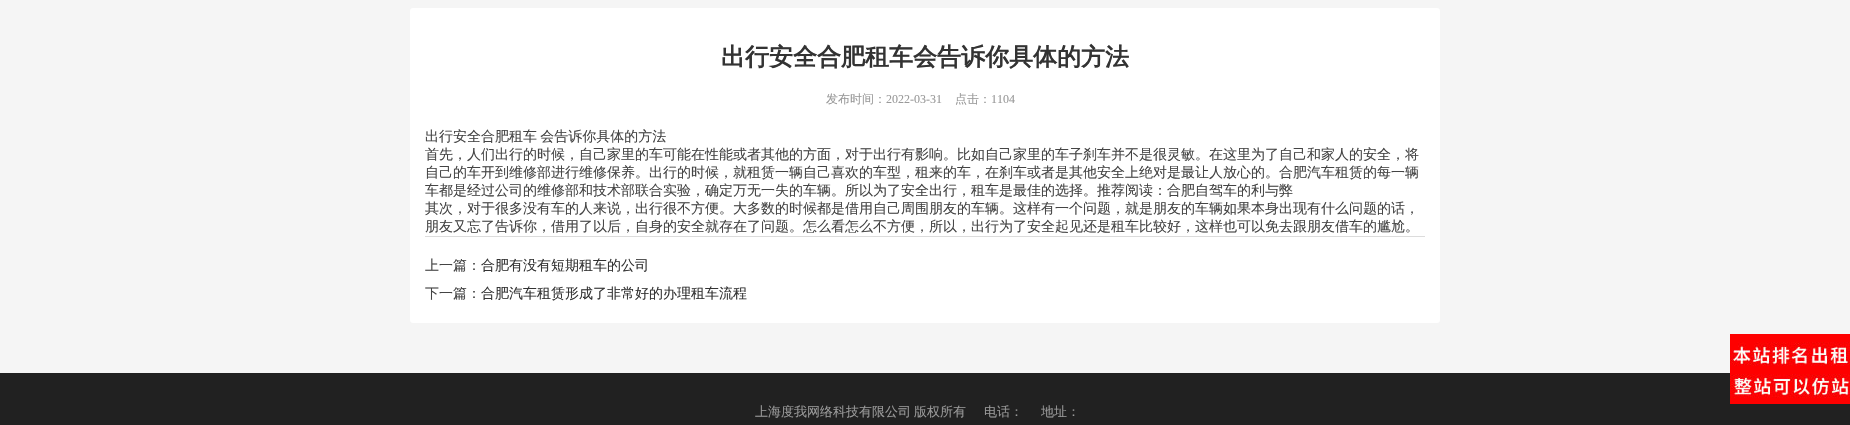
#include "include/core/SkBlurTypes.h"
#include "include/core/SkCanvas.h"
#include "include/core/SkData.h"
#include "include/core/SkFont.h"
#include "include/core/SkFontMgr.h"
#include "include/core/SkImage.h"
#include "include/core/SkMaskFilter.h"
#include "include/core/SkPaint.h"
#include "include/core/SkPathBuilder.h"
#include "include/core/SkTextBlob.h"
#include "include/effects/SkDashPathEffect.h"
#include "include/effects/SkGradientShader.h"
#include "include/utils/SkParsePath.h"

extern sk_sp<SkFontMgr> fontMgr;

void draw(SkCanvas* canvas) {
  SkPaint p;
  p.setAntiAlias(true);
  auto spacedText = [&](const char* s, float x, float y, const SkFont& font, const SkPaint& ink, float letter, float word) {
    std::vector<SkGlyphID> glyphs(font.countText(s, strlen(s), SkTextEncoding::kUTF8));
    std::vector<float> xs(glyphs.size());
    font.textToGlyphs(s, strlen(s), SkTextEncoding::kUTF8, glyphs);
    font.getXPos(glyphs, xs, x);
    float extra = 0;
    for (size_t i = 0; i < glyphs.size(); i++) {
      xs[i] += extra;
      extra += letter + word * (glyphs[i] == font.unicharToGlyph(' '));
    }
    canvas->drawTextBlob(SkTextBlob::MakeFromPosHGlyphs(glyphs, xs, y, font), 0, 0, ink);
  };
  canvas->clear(SkColorSetRGB(245, 245, 245));
  p.setColor(SK_ColorWHITE);
  canvas->drawRoundRect(SkRect::MakeLTRB(410, 8, 1440, 323), 3, 3, p);
  p.setColor(SkColorSetRGB(220, 220, 220));
  canvas->drawRect(SkRect::MakeLTRB(425, 236, 1425, 237), p);
  p.setColor(SkColorSetRGB(33, 33, 33));
  canvas->drawRect(SkRect::MakeLTRB(0, 373, 1850, 425), p);
  canvas->drawImageRect(SkImages::DeferredFromEncodedData(SkData::MakeFromFileName("images/1.png")), SkRect::MakeLTRB(1730, 334, 1850, 404), SkSamplingOptions());
  SkFont font1(fontMgr->matchFamilyStyle("WenQuanYi Zen Hei", SkFontStyle::Bold()), 24);
  font1.setSubpixel(true);
  p.setColor(SkColorSetRGB(51, 51, 51));
  canvas->drawString("出行安全合肥租车会告诉你具体的方法", 721, 65, font1, p);
  SkFont font2(fontMgr->matchFamilyStyle("WenQuanYi Zen Hei", SkFontStyle(500, SkFontStyle::kNormal_Width, SkFontStyle::kUpright_Slant)), 12);
  font2.setSubpixel(true);
  p.setColor(SkColorSetRGB(153, 153, 153));
  canvas->drawString("发布时间：", 826, 103, font2, p);
  SkFont font3(fontMgr->matchFamilyStyle("Liberation Serif", SkFontStyle::Normal()), 12);
  font3.setSubpixel(true);
  canvas->drawString("2022-03-31", 886, 103, font3, p);
  canvas->drawString("点击：", 955, 103, font2, p);
  canvas->drawString("1104", 991, 103, font3, p);
  SkFont font4(fontMgr->matchFamilyStyle("WenQuanYi Zen Hei", SkFontStyle(500, SkFontStyle::kNormal_Width, SkFontStyle::kUpright_Slant)), 14);
  font4.setSubpixel(true);
  p.setColor(SkColorSetRGB(68, 68, 68));
  spacedText("出行安全合肥租车 会告诉你具体的方法", 425, 141, font4, p, 0, -1);
  canvas->drawString("首先，人们出行的时候，自己家里的车可能在性能或者其他的方面，对于出行有影响。比如自己家里的车子刹车并不是很灵敏。在这里为了自己和家人的安全，将", 425, 159, font4, p);
  canvas->drawString("自己的车开到维修部进行维修保养。出行的时候，就租赁一辆自己喜欢的车型，租来的车，在刹车或者是其他安全上绝对是最让人放心的。合肥汽车租赁的每一辆", 425, 177, font4, p);
  canvas->drawString("车都是经过公司的维修部和技术部联合实验，确定万无一失的车辆。所以为了安全出行，租车是最佳的选择。推荐阅读：合肥自驾车的利与弊", 425, 195, font4, p);
  canvas->drawString("其次，对于很多没有车的人来说，出行很不方便。大多数的时候都是借用自己周围朋友的车辆。这样有一个问题，就是朋友的车辆如果本身出现有什么问题的话，", 425, 213, font4, p);
  canvas->drawString("朋友又忘了告诉你，借用了以后，自身的安全就存在了问题。怎么看怎么不方便，所以，出行为了安全起见还是租车比较好，这样也可以免去跟朋友借车的尴尬。", 425, 231, font4, p);
  canvas->drawString("上一篇：", 425, 270, font4, p);
  p.setColor(SkColorSetRGB(51, 51, 51));
  canvas->drawString("合肥有没有短期租车的公司", 481, 270, font4, p);
  p.setColor(SkColorSetRGB(68, 68, 68));
  canvas->drawString("下一篇：", 425, 298, font4, p);
  p.setColor(SkColorSetRGB(51, 51, 51));
  canvas->drawString("合肥汽车租赁形成了非常好的办理租车流程", 481, 298, font4, p);
  SkFont font5(fontMgr->matchFamilyStyle("WenQuanYi Zen Hei", SkFontStyle(500, SkFontStyle::kNormal_Width, SkFontStyle::kUpright_Slant)), 13);
  font5.setSubpixel(true);
  p.setColor(SkColorSetRGB(153, 153, 153));
  canvas->drawString("上海度我网络科技有限公司", 755, 416, font5, p);
  canvas->drawString("版权所有", 914, 416, font5, p);
  canvas->drawString("电话：", 984, 416, font5, p);
  canvas->drawString("地址：", 1041, 416, font5, p);
}
